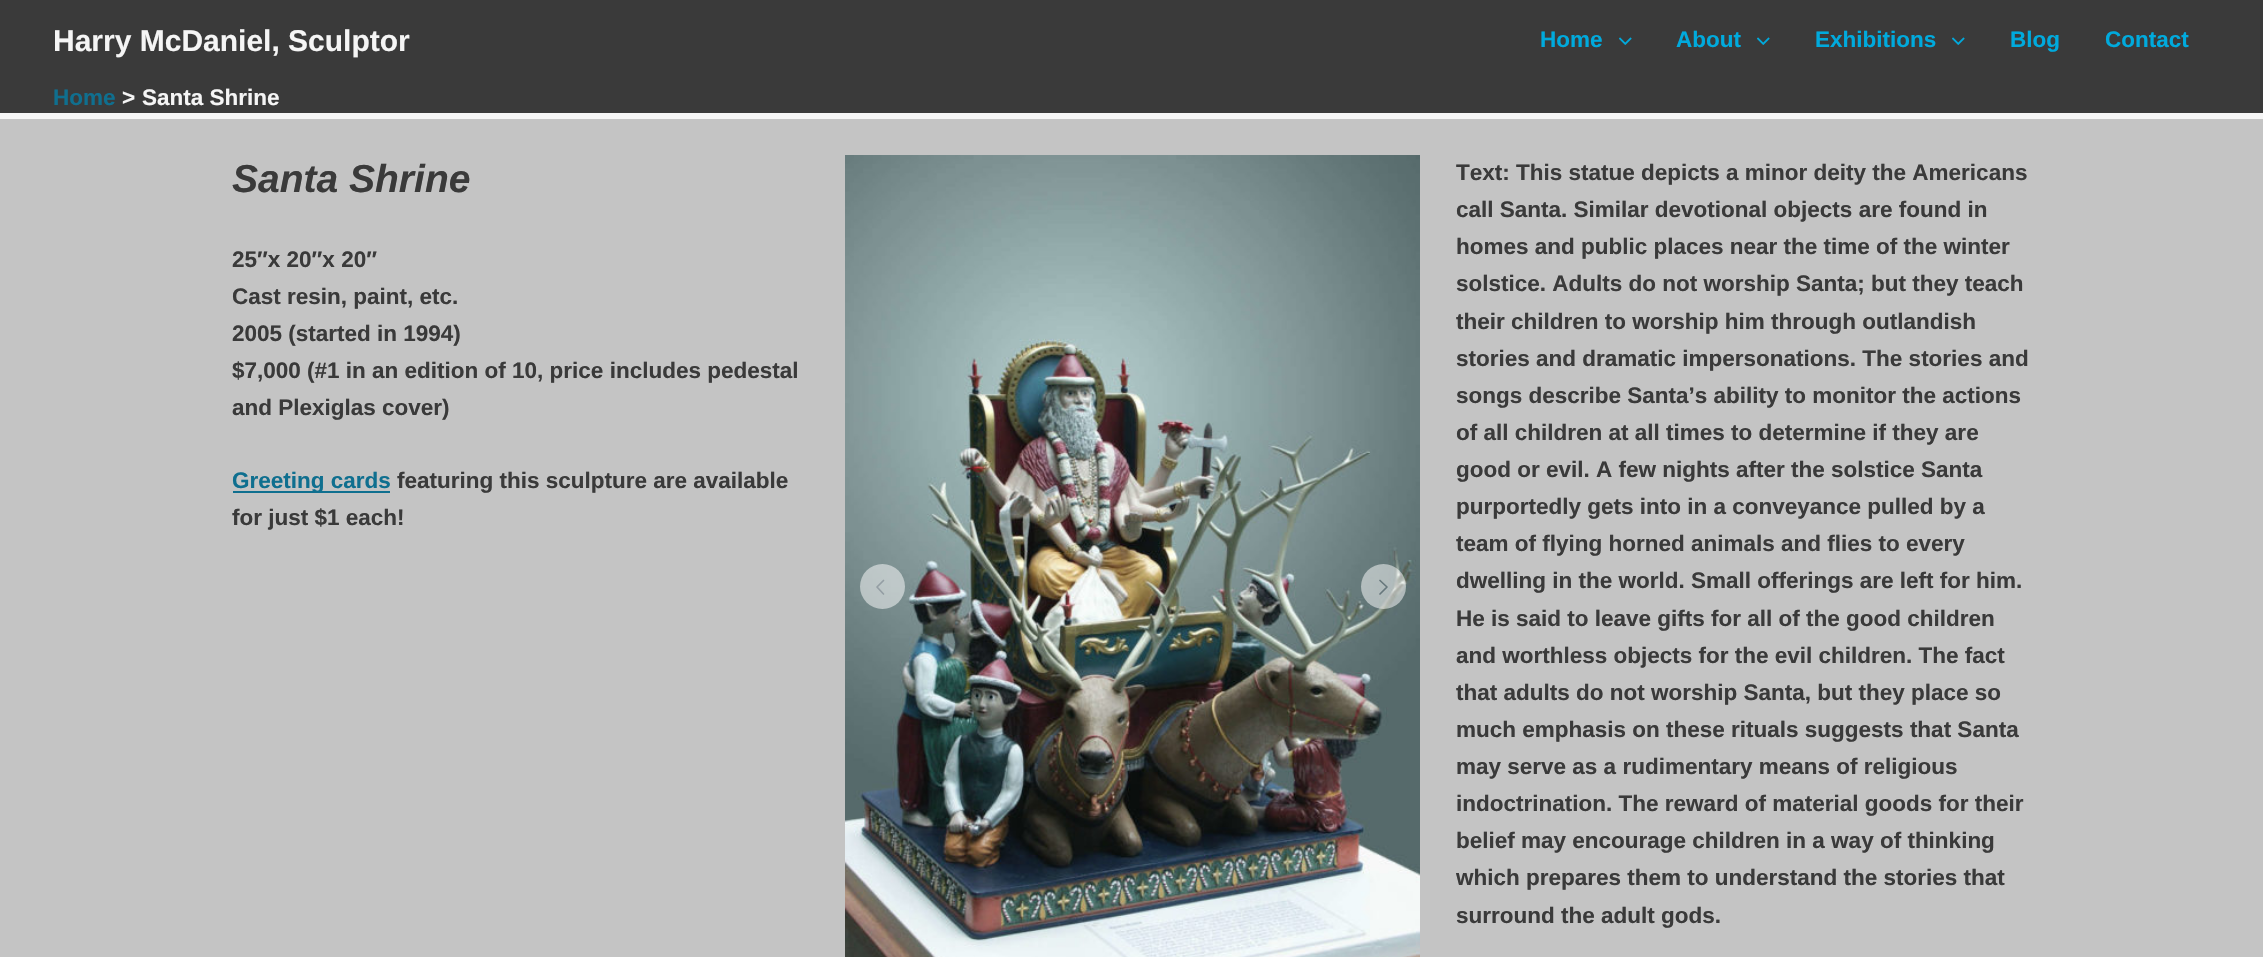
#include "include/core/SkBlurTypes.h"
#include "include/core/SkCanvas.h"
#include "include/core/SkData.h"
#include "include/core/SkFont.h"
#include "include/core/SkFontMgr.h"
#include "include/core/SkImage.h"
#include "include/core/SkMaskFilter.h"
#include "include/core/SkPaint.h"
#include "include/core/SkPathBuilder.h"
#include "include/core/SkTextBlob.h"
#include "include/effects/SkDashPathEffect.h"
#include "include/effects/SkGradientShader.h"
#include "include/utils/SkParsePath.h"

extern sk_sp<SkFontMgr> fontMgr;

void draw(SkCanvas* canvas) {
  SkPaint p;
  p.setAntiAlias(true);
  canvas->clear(SkColorSetRGB(196, 196, 196));
  p.setColor(SkColorSetRGB(58, 58, 58));
  canvas->drawRect(SkRect::MakeLTRB(0, 0, 2263, 113), p);
  p.setColor(SkColorSetRGB(245, 245, 245));
  canvas->drawRect(SkRect::MakeLTRB(0, 113, 2263, 119), p);
  canvas->drawImageRect(SkImages::DeferredFromEncodedData(SkData::MakeFromFileName("images/1.png")), SkRect::MakeLTRB(1619, 37, 1632, 45), SkSamplingOptions());
  canvas->drawImageRect(SkImages::DeferredFromEncodedData(SkData::MakeFromFileName("images/1.png")), SkRect::MakeLTRB(1757, 37, 1770, 45), SkSamplingOptions());
  canvas->drawImageRect(SkImages::DeferredFromEncodedData(SkData::MakeFromFileName("images/1.png")), SkRect::MakeLTRB(1952, 37, 1965, 45), SkSamplingOptions());
  p.setColor(SkColorSetRGB(15, 111, 143));
  canvas->drawRect(SkRect::MakeLTRB(233, 491, 390, 493), p);
  canvas->drawImageRect(SkImages::DeferredFromEncodedData(SkData::MakeFromFileName("images/2.png")), SkRect::MakeLTRB(845, 155, 1420, 957), SkSamplingOptions());
  p.setColor(SkColorSetARGB(128, 255, 255, 255));
  canvas->drawCircle(882.5f, 586.5f, 22.5f, p);
  p.setStyle(SkPaint::kStroke_Style);
  p.setStrokeWidth(1.7f);
  p.setStrokeCap(SkPaint::kRound_Cap);
  p.setStrokeJoin(SkPaint::kRound_Join);
  p.setColor(SkColorSetRGB(148, 158, 164));
  canvas->drawPath(SkPathBuilder().moveTo(883.5f, 580.5f).lineTo(877, 587).lineTo(883.5f, 594).detach(), p);
  p.setStyle(SkPaint::kFill_Style);
  p.setColor(SkColorSetARGB(128, 255, 255, 255));
  canvas->drawCircle(1383.5f, 586.5f, 22.5f, p);
  p.setStyle(SkPaint::kStroke_Style);
  p.setColor(SkColorSetRGB(103, 119, 124));
  canvas->drawPath(SkPathBuilder().moveTo(1380, 580.5f).lineTo(1387, 587).lineTo(1380, 594).detach(), p);
  SkFont font1(fontMgr->matchFamilyStyle("Liberation Sans", SkFontStyle::Bold()), 30);
  font1.setSubpixel(true);
  p.setStyle(SkPaint::kFill_Style);
  p.setColor(SkColorSetRGB(245, 245, 245));
  canvas->drawString("Harry McDaniel, Sculptor", 53, 51, font1, p);
  SkFont font2(fontMgr->matchFamilyStyle("Liberation Sans", SkFontStyle::Bold()), 22.5f);
  font2.setSubpixel(true);
  p.setColor(SkColorSetRGB(0, 170, 221));
  canvas->drawString("Home", 1540, 47, font2, p);
  canvas->drawString("About", 1676, 47, font2, p);
  canvas->drawString("Exhibitions", 1815, 47, font2, p);
  canvas->drawString("Blog", 2010, 47, font2, p);
  canvas->drawString("Contact", 2105, 47, font2, p);
  p.setColor(SkColorSetRGB(15, 111, 143));
  canvas->drawString("Home", 53, 105, font2, p);
  p.setColor(SkColorSetRGB(245, 245, 245));
  canvas->drawString(">", 122, 105, font2, p);
  canvas->drawString("Santa Shrine", 142, 105, font2, p);
  SkFont font3(fontMgr->matchFamilyStyle("Liberation Sans", SkFontStyle::BoldItalic()), 39);
  font3.setSubpixel(true);
  p.setColor(SkColorSetRGB(58, 58, 58));
  canvas->drawString("Santa Shrine", 232, 192, font3, p);
  canvas->drawString("25″x 20″x 20″", 232, 267, font2, p);
  canvas->drawString("Cast resin, paint, etc.", 232, 304, font2, p);
  canvas->drawString("2005 (started in 1994)", 232, 341, font2, p);
  canvas->drawString("$7,000 (#1 in an edition of 10, price includes pedestal", 232, 378, font2, p);
  canvas->drawString("and Plexiglas cover)", 232, 415, font2, p);
  p.setColor(SkColorSetRGB(15, 111, 143));
  canvas->drawString("Greeting cards", 232, 488, font2, p);
  p.setColor(SkColorSetRGB(58, 58, 58));
  canvas->drawString("featuring this sculpture are available", 397, 488, font2, p);
  canvas->drawString("for just $1 each!", 232, 525, font2, p);
  canvas->drawString("Text: This statue depicts a minor deity the Americans", 1456, 180, font2, p);
  canvas->drawString("call Santa. Similar devotional objects are found in", 1456, 217, font2, p);
  canvas->drawString("homes and public places near the time of the winter", 1456, 254, font2, p);
  canvas->drawString("solstice. Adults do not worship Santa; but they teach", 1456, 291, font2, p);
  canvas->drawString("their children to worship him through outlandish", 1456, 329, font2, p);
  canvas->drawString("stories and dramatic impersonations. The stories and", 1456, 366, font2, p);
  canvas->drawString("songs describe Santa’s ability to monitor the actions", 1456, 403, font2, p);
  canvas->drawString("of all children at all times to determine if they are", 1456, 440, font2, p);
  canvas->drawString("good or evil. A few nights after the solstice Santa", 1456, 477, font2, p);
  canvas->drawString("purportedly gets into in a conveyance pulled by a", 1456, 514, font2, p);
  canvas->drawString("team of flying horned animals and flies to every", 1456, 551, font2, p);
  canvas->drawString("dwelling in the world. Small offerings are left for him.", 1456, 588, font2, p);
  canvas->drawString("He is said to leave gifts for all of the good children", 1456, 626, font2, p);
  canvas->drawString("and worthless objects for the evil children. The fact", 1456, 663, font2, p);
  canvas->drawString("that adults do not worship Santa, but they place so", 1456, 700, font2, p);
  canvas->drawString("much emphasis on these rituals suggests that Santa", 1456, 737, font2, p);
  canvas->drawString("may serve as a rudimentary means of religious", 1456, 774, font2, p);
  canvas->drawString("indoctrination. The reward of material goods for their", 1456, 811, font2, p);
  canvas->drawString("belief may encourage children in a way of thinking", 1456, 848, font2, p);
  canvas->drawString("which prepares them to understand the stories that", 1456, 885, font2, p);
  canvas->drawString("surround the adult gods.", 1456, 923, font2, p);
}
